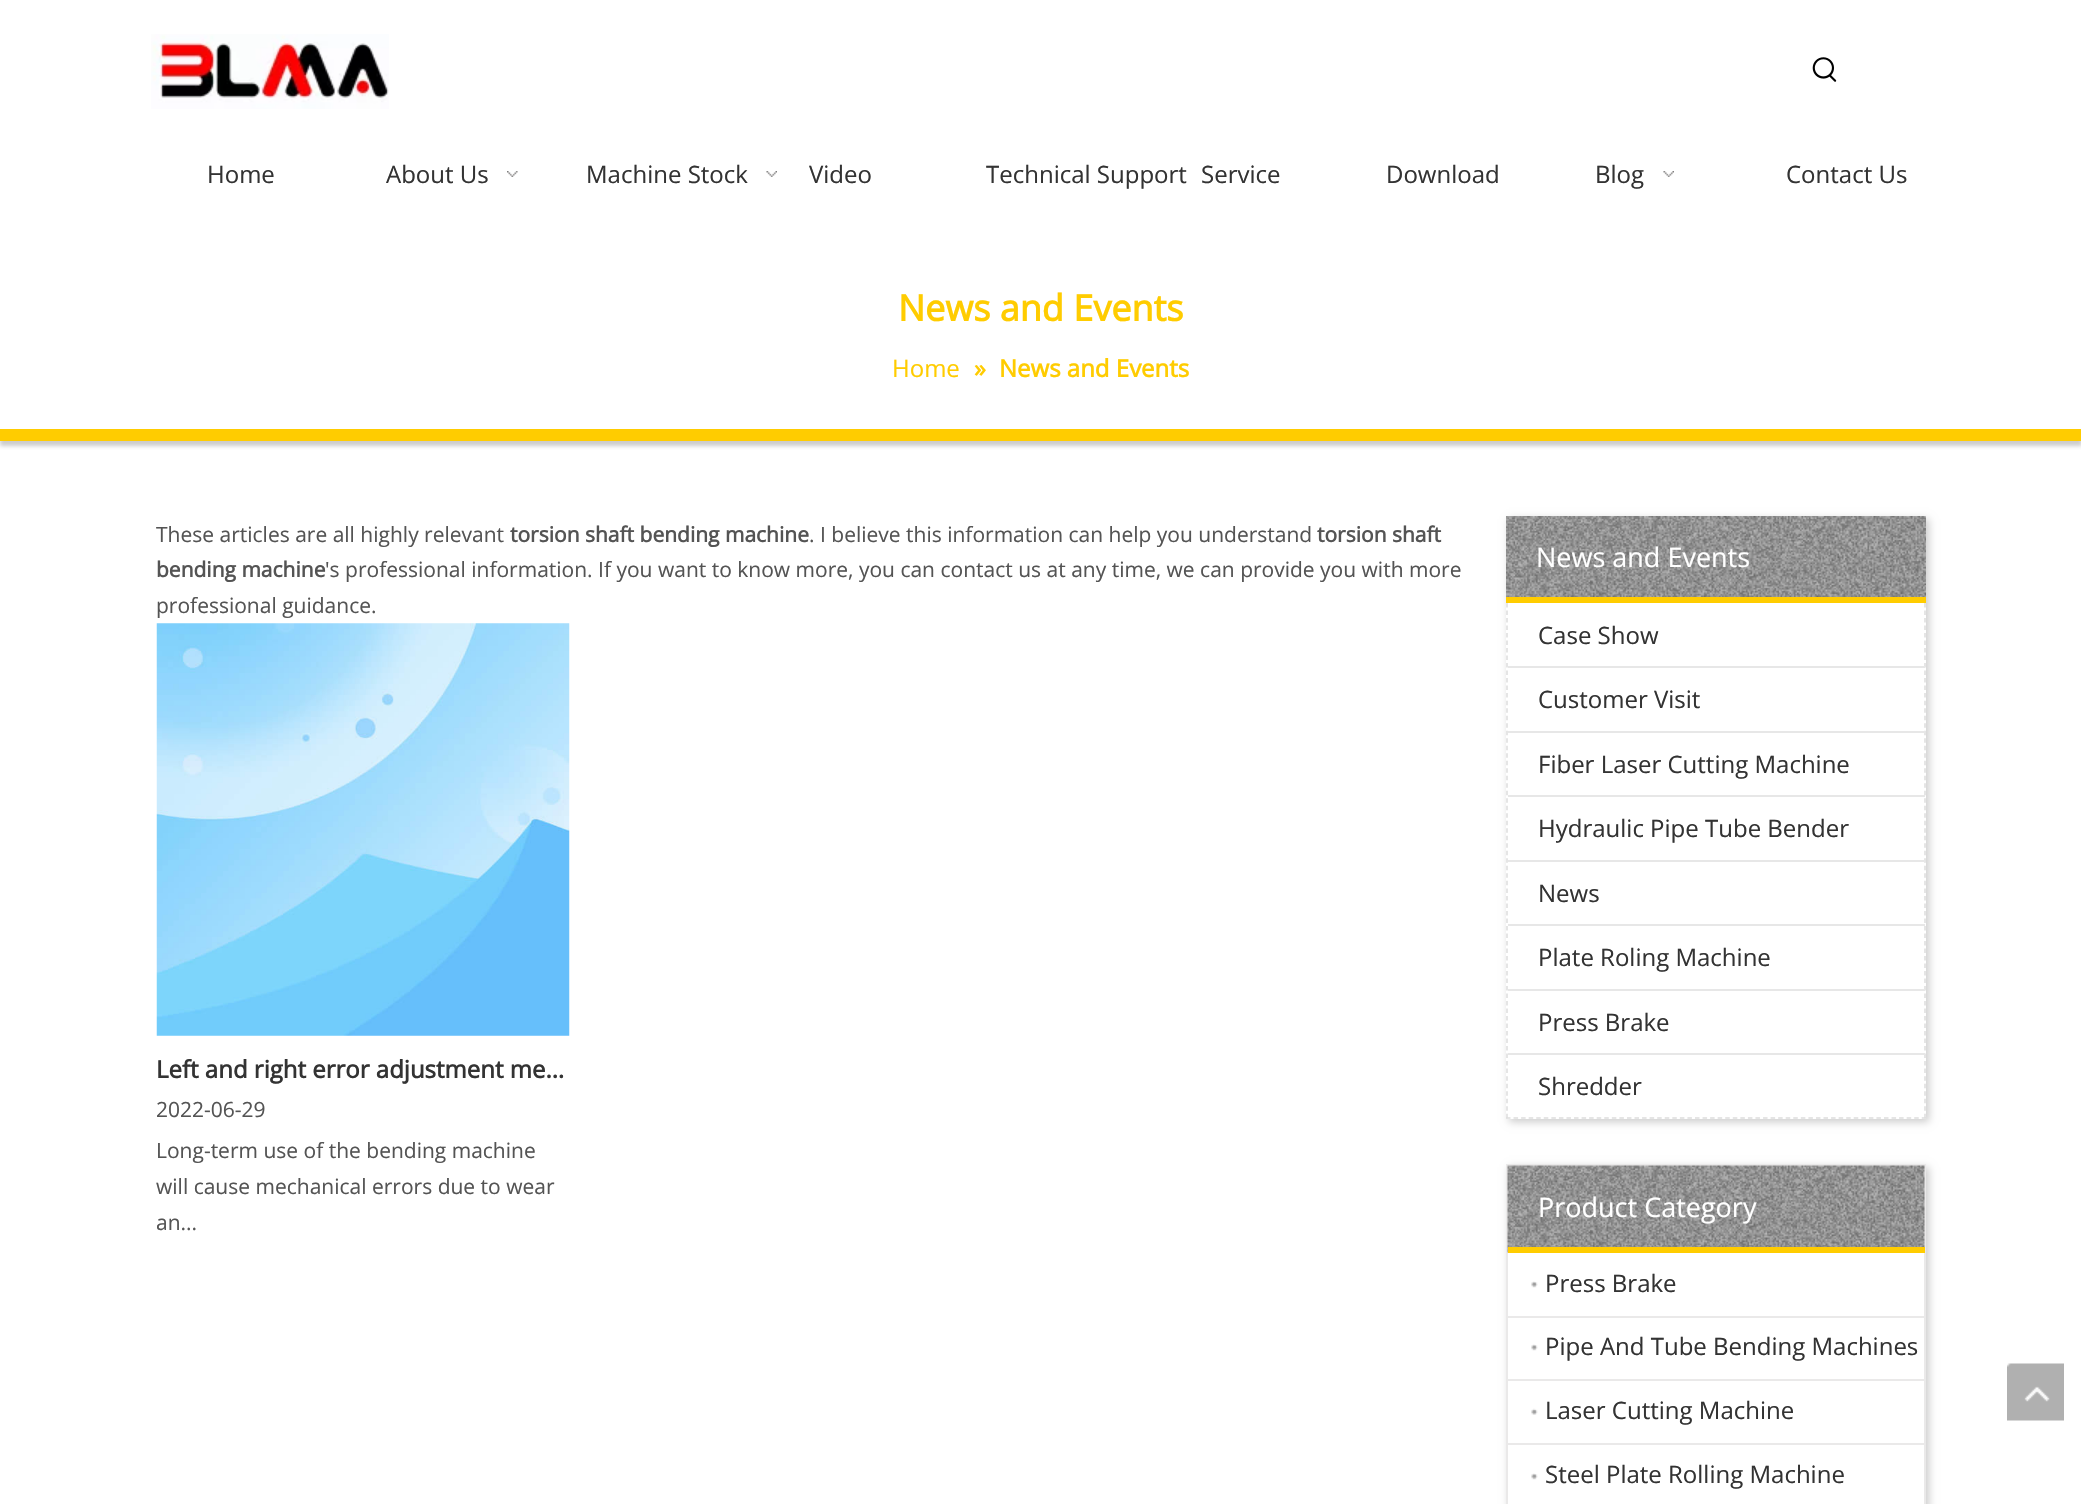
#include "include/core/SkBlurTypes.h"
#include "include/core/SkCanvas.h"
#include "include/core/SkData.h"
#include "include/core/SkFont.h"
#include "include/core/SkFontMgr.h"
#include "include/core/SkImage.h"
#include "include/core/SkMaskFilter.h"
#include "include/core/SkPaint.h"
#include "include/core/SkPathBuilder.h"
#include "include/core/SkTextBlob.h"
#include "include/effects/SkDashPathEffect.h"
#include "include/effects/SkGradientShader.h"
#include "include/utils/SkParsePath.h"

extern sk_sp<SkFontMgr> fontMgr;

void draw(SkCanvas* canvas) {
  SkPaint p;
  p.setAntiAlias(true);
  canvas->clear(SK_ColorWHITE);
  canvas->drawImageRect(SkImages::DeferredFromEncodedData(SkData::MakeFromFileName("images/1.png")), SkRect::MakeLTRB(151, 34, 389, 109), SkSamplingOptions());
  canvas->drawImageRect(SkImages::DeferredFromEncodedData(SkData::MakeFromFileName("images/2.png")), SkRect::MakeLTRB(1812, 57, 1837, 82), SkSamplingOptions());
  canvas->drawImageRect(SkImages::DeferredFromEncodedData(SkData::MakeFromFileName("images/3.png")), SkRect::MakeLTRB(507, 171, 518, 177), SkSamplingOptions());
  canvas->drawImageRect(SkImages::DeferredFromEncodedData(SkData::MakeFromFileName("images/4.png")), SkRect::MakeLTRB(766, 171, 777, 177), SkSamplingOptions());
  canvas->drawImageRect(SkImages::DeferredFromEncodedData(SkData::MakeFromFileName("images/4.png")), SkRect::MakeLTRB(1663, 171, 1674, 177), SkSamplingOptions());
  canvas->save();
  canvas->clipRect(SkRect::MakeLTRB(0, 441, 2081, 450));
  p.setColor(SkColorSetRGB(204, 204, 204));
  p.setMaskFilter(SkMaskFilter::MakeBlur(kNormal_SkBlurStyle, 2));
  canvas->drawRect(SkRect::MakeLTRB(0, 239, 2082, 446), p);
  p.setMaskFilter(nullptr);
  canvas->restore();
  p.setColor(SkColorSetRGB(255, 204, 0));
  canvas->drawRect(SkRect::MakeLTRB(0, 429, 2081, 441), p);
  canvas->drawImageRect(SkImages::DeferredFromEncodedData(SkData::MakeFromFileName("images/5.png")), SkRect::MakeLTRB(156, 623, 570, 1036), SkSamplingOptions());
  canvas->save();
  canvas->clipPath(SkPathBuilder(SkPathFillType::kEvenOdd).moveTo(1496, 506).lineTo(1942, 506).lineTo(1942, 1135).lineTo(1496, 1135).close().moveTo(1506, 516).lineTo(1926, 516).lineTo(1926, 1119).lineTo(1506, 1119).close().detach(), true);
  p.setColor(SkColorSetRGB(204, 204, 204));
  p.setMaskFilter(SkMaskFilter::MakeBlur(kNormal_SkBlurStyle, 4));
  canvas->drawRect(SkRect::MakeLTRB(1509, 519, 1929, 1122), p);
  p.setMaskFilter(nullptr);
  canvas->restore();
  canvas->drawImageRect(SkImages::DeferredFromEncodedData(SkData::MakeFromFileName("images/6.png")), SkRect::MakeLTRB(1506, 516, 1926, 597), SkSamplingOptions());
  p.setColor(SkColorSetRGB(255, 204, 0));
  canvas->drawRect(SkRect::MakeLTRB(1506, 597, 1926, 603), p);
  p.setStyle(SkPaint::kStroke_Style);
  p.setStrokeWidth(1.5f);
  p.setColor(SkColorSetRGB(221, 221, 221));
  p.setPathEffect(SkDashPathEffect::Make({{4.5f, 3.01f}}, 0));
  canvas->drawPath(SkPathBuilder().moveTo(1925, 603).lineTo(1925, 1119).detach(), p);
  p.setPathEffect(nullptr);
  p.setPathEffect(SkDashPathEffect::Make({{4.5f, 3.06f}}, 0));
  canvas->drawPath(SkPathBuilder().moveTo(1506, 1118).lineTo(1926, 1118).detach(), p);
  p.setPathEffect(nullptr);
  p.setPathEffect(SkDashPathEffect::Make({{4.5f, 3.01f}}, 0));
  canvas->drawPath(SkPathBuilder().moveTo(1507, 603).lineTo(1507, 1119).detach(), p);
  p.setPathEffect(nullptr);
  p.setStyle(SkPaint::kFill_Style);
  p.setColor(SkColorSetRGB(231, 231, 231));
  canvas->drawRect(SkRect::MakeLTRB(1508, 666, 1925, 668), p);
  canvas->drawRect(SkRect::MakeLTRB(1508, 731, 1925, 733), p);
  canvas->drawRect(SkRect::MakeLTRB(1508, 795, 1925, 797), p);
  canvas->drawRect(SkRect::MakeLTRB(1508, 860, 1925, 862), p);
  canvas->drawRect(SkRect::MakeLTRB(1508, 924, 1925, 926), p);
  canvas->drawRect(SkRect::MakeLTRB(1508, 989, 1925, 991), p);
  canvas->drawRect(SkRect::MakeLTRB(1508, 1053, 1925, 1055), p);
  canvas->save();
  canvas->clipPath(SkPathBuilder(SkPathFillType::kEvenOdd).moveTo(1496, 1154).lineTo(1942, 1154).lineTo(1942, 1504).lineTo(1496, 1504).close().moveTo(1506, 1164).lineTo(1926, 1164).lineTo(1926, 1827).lineTo(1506, 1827).close().detach(), true);
  p.setColor(SkColorSetRGB(204, 204, 204));
  p.setMaskFilter(SkMaskFilter::MakeBlur(kNormal_SkBlurStyle, 4));
  canvas->drawRect(SkRect::MakeLTRB(1509, 1167, 1929, 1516), p);
  p.setMaskFilter(nullptr);
  canvas->restore();
  p.setStyle(SkPaint::kStroke_Style);
  p.setStrokeWidth(2);
  p.setColor(SkColorSetRGB(234, 233, 233));
  canvas->drawRect(SkRect::MakeLTRB(1507, 1165, 1925, 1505), p);
  canvas->drawImageRect(SkImages::DeferredFromEncodedData(SkData::MakeFromFileName("images/7.png")), SkRect::MakeLTRB(1507, 1165, 1925, 1253), SkSamplingOptions());
  p.setStyle(SkPaint::kFill_Style);
  p.setColor(SkColorSetRGB(255, 204, 0));
  canvas->drawRect(SkRect::MakeLTRB(1508, 1247, 1925, 1253), p);
  canvas->drawImageRect(SkImages::DeferredFromEncodedData(SkData::MakeFromFileName("images/8.png")), SkRect::MakeLTRB(1531, 1281, 1538, 1288), SkSamplingOptions());
  p.setColor(SkColorSetRGB(234, 233, 233));
  canvas->drawRect(SkRect::MakeLTRB(1508, 1316, 1925, 1318), p);
  canvas->drawImageRect(SkImages::DeferredFromEncodedData(SkData::MakeFromFileName("images/8.png")), SkRect::MakeLTRB(1531, 1344, 1538, 1351), SkSamplingOptions());
  canvas->drawRect(SkRect::MakeLTRB(1508, 1379, 1925, 1381), p);
  canvas->drawImageRect(SkImages::DeferredFromEncodedData(SkData::MakeFromFileName("images/9.png")), SkRect::MakeLTRB(1531, 1408, 1538, 1415), SkSamplingOptions());
  canvas->drawRect(SkRect::MakeLTRB(1508, 1443, 1925, 1445), p);
  canvas->drawImageRect(SkImages::DeferredFromEncodedData(SkData::MakeFromFileName("images/8.png")), SkRect::MakeLTRB(1531, 1473, 1538, 1480), SkSamplingOptions());
  canvas->drawImageRect(SkImages::DeferredFromEncodedData(SkData::MakeFromFileName("images/10.png")), SkRect::MakeLTRB(2007, 1363, 2064, 1421), SkSamplingOptions());
  SkFont font1(fontMgr->matchFamilyStyle("Open Sans", SkFontStyle::Normal()), 24);
  font1.setSubpixel(true);
  p.setColor(SkColorSetRGB(51, 51, 51));
  canvas->drawString("Home", 207, 183, font1, p);
  canvas->drawString("About Us", 386, 183, font1, p);
  canvas->drawString("Machine Stock", 586, 183, font1, p);
  canvas->drawString("Video", 809, 183, font1, p);
  canvas->drawString("Technical Support", 986, 183, font1, p);
  canvas->drawString("Service", 1201, 183, font1, p);
  canvas->drawString("Download", 1386, 183, font1, p);
  canvas->drawString("Blog", 1595, 183, font1, p);
  canvas->drawString("Contact Us", 1786, 183, font1, p);
  SkFont font2(fontMgr->matchFamilyStyle("Open Sans", SkFontStyle::Bold()), 36);
  font2.setSubpixel(true);
  p.setColor(SkColorSetRGB(255, 204, 0));
  canvas->drawString("News and Events", 898, 321, font2, p);
  canvas->drawString("Home", 892, 377, font1, p);
  SkFont font3(fontMgr->matchFamilyStyle("Open Sans", SkFontStyle::Bold()), 24);
  font3.setSubpixel(true);
  canvas->drawString("»", 974, 377, font3, p);
  canvas->drawString("News and Events", 999, 377, font3, p);
  SkFont font4(fontMgr->matchFamilyStyle("Open Sans", SkFontStyle::Normal()), 21);
  font4.setSubpixel(true);
  p.setColor(SkColorSetRGB(84, 84, 84));
  canvas->drawString("These articles are all highly relevant", 156, 542, font4, p);
  SkFont font5(fontMgr->matchFamilyStyle("Open Sans", SkFontStyle::Bold()), 21);
  font5.setSubpixel(true);
  canvas->drawString("torsion shaft bending machine", 510, 542, font5, p);
  canvas->drawString(". I believe this information can help you understand", 809, 542, font4, p);
  canvas->drawString("torsion shaft", 1317, 542, font5, p);
  canvas->drawString("bending machine", 156, 577, font5, p);
  canvas->drawString("'s professional information. If you want to know more, you can contact us at any time, we can provide you with more", 325, 577, font4, p);
  canvas->drawString("professional guidance.", 156, 613, font4, p);
  p.setColor(SkColorSetRGB(51, 51, 51));
  canvas->drawString("Left and right error adjustment me…", 156, 1078, font3, p);
  p.setColor(SkColorSetRGB(84, 84, 84));
  canvas->drawString("2022-06-29", 156, 1117, font4, p);
  canvas->drawString("Long-term use of the bending machine", 156, 1158, font4, p);
  canvas->drawString("will cause mechanical errors due to wear", 156, 1194, font4, p);
  canvas->drawString("an...", 156, 1230, font4, p);
  SkFont font6(fontMgr->matchFamilyStyle("Open Sans", SkFontStyle::Normal()), 27);
  font6.setSubpixel(true);
  p.setColor(SK_ColorWHITE);
  canvas->drawString("News and Events", 1536, 567, font6, p);
  p.setColor(SkColorSetRGB(51, 51, 51));
  canvas->drawString("Case Show", 1538, 644, font1, p);
  canvas->drawString("Customer Visit", 1538, 708, font1, p);
  canvas->drawString("Fiber Laser Cutting Machine", 1538, 773, font1, p);
  canvas->drawString("Hydraulic Pipe Tube Bender", 1538, 837, font1, p);
  canvas->drawString("News", 1538, 902, font1, p);
  canvas->drawString("Plate Roling Machine", 1538, 966, font1, p);
  canvas->drawString("Press Brake", 1538, 1031, font1, p);
  canvas->drawString("Shredder", 1538, 1095, font1, p);
  p.setColor(SK_ColorWHITE);
  canvas->drawString("Product Category", 1538, 1217, font6, p);
  p.setColor(SkColorSetRGB(51, 51, 51));
  canvas->drawString("Press Brake", 1545, 1292, font1, p);
  canvas->drawString("Pipe And Tube Bending Machines", 1545, 1355, font1, p);
  canvas->drawString("Laser Cutting Machine", 1545, 1419, font1, p);
  canvas->drawString("Steel Plate Rolling Machine", 1545, 1483, font1, p);
}
